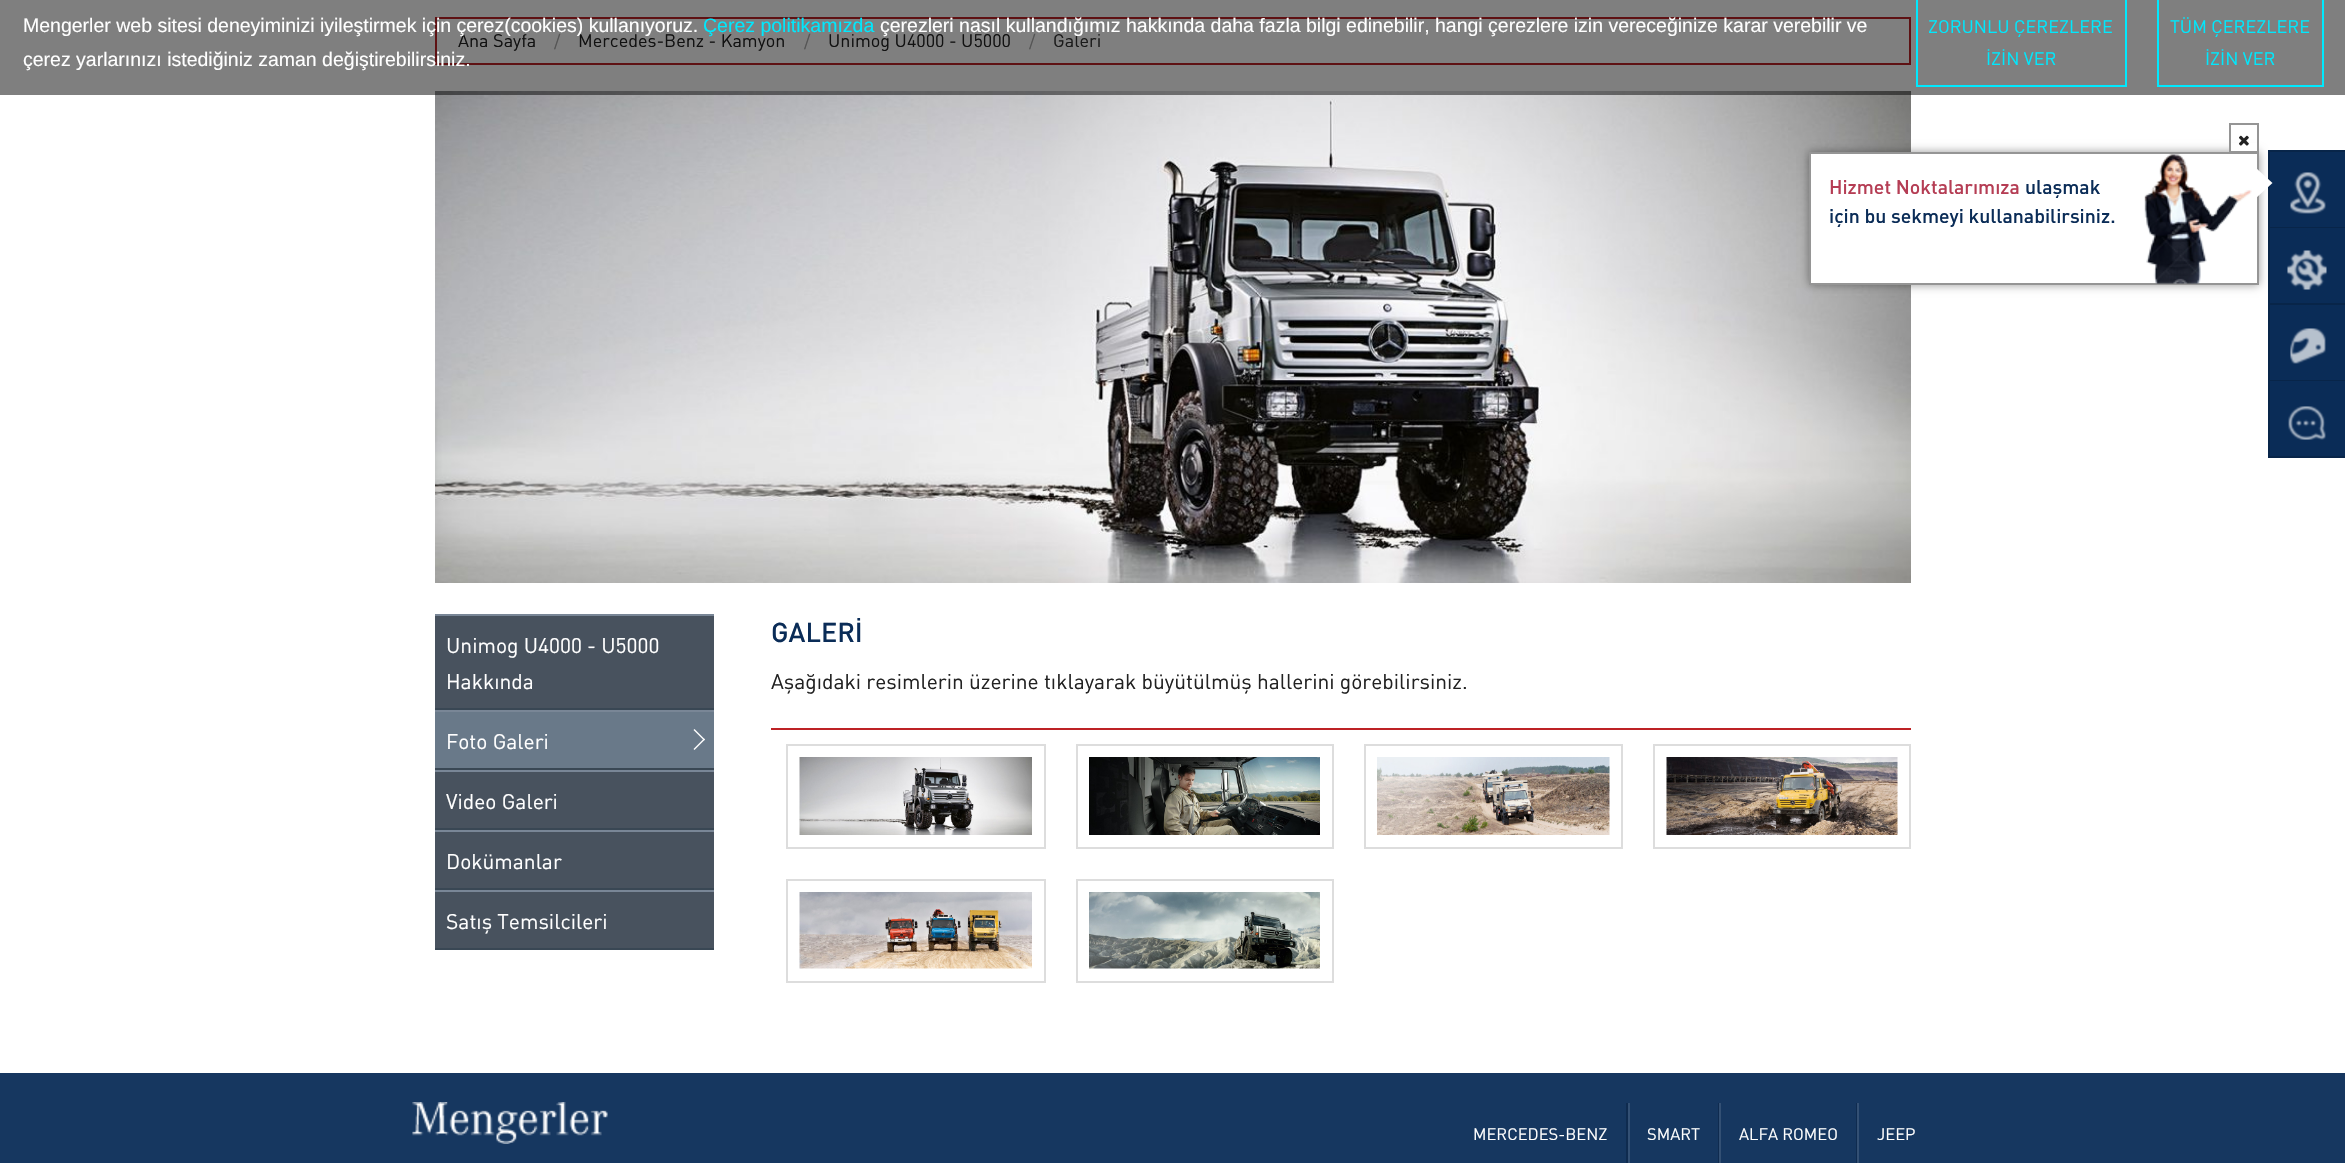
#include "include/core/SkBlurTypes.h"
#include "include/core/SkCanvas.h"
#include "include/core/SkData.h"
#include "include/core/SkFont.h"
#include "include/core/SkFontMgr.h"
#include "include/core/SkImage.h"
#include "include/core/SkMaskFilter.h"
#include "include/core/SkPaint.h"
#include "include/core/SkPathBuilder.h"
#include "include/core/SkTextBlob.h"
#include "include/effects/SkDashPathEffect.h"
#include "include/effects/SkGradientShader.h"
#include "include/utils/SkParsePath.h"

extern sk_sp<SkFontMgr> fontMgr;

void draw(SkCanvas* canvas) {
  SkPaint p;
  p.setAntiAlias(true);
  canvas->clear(SK_ColorWHITE);
  p.setStyle(SkPaint::kStroke_Style);
  p.setStrokeWidth(2);
  p.setColor(SkColorSetRGB(189, 34, 37));
  canvas->drawRect(SkRect::MakeLTRB(436, 18, 1910, 64), p);
  canvas->drawImageRect(SkImages::DeferredFromEncodedData(SkData::MakeFromFileName("images/1.png")), SkRect::MakeLTRB(435, 91, 1911, 583), SkSamplingOptions());
  p.setStyle(SkPaint::kFill_Style);
  p.setColor(SkColorSetRGB(72, 82, 94));
  canvas->drawRect(SkRect::MakeLTRB(435, 616, 714, 948), p);
  p.setColor(SkColorSetRGB(121, 134, 150));
  canvas->drawRect(SkRect::MakeLTRB(435, 614, 714, 616), p);
  p.setColor(SkColorSetRGB(57, 71, 84));
  canvas->drawRect(SkRect::MakeLTRB(435, 708, 714, 710), p);
  p.setColor(SkColorSetRGB(105, 121, 137));
  canvas->drawRect(SkRect::MakeLTRB(435, 712, 714, 768), p);
  p.setColor(SkColorSetRGB(121, 134, 150));
  canvas->drawRect(SkRect::MakeLTRB(435, 710, 714, 712), p);
  p.setColor(SkColorSetRGB(57, 71, 84));
  canvas->drawRect(SkRect::MakeLTRB(435, 768, 714, 770), p);
  p.setColor(SK_ColorWHITE);
  canvas->drawPath(SkPathBuilder().moveTo(694.5f, 729).lineTo(705, 739.5f).lineTo(704, 740.5f).lineTo(693.5f, 730).close().detach(), p);
  canvas->drawPath(SkPathBuilder().moveTo(704, 738.5f).lineTo(705, 739.5f).lineTo(694.5f, 750).lineTo(693.5f, 749).close().detach(), p);
  p.setColor(SkColorSetRGB(121, 134, 150));
  canvas->drawRect(SkRect::MakeLTRB(435, 770, 714, 772), p);
  p.setColor(SkColorSetRGB(57, 71, 84));
  canvas->drawRect(SkRect::MakeLTRB(435, 828, 714, 830), p);
  p.setColor(SkColorSetRGB(121, 134, 150));
  canvas->drawRect(SkRect::MakeLTRB(435, 830, 714, 832), p);
  p.setColor(SkColorSetRGB(57, 71, 84));
  canvas->drawRect(SkRect::MakeLTRB(435, 888, 714, 890), p);
  p.setColor(SkColorSetRGB(121, 134, 150));
  canvas->drawRect(SkRect::MakeLTRB(435, 890, 714, 892), p);
  p.setColor(SkColorSetRGB(57, 71, 84));
  canvas->drawRect(SkRect::MakeLTRB(435, 948, 714, 950), p);
  p.setColor(SkColorSetRGB(189, 34, 37));
  canvas->drawRect(SkRect::MakeLTRB(771, 728, 1911, 730), p);
  p.setStyle(SkPaint::kStroke_Style);
  p.setColor(SkColorSetRGB(221, 221, 221));
  canvas->drawRect(SkRect::MakeLTRB(787, 745, 1045, 848), p);
  canvas->drawImageRect(SkImages::DeferredFromEncodedData(SkData::MakeFromFileName("images/2.png")), SkRect::MakeLTRB(799, 757, 1032, 835), SkSamplingOptions());
  canvas->drawRect(SkRect::MakeLTRB(1077, 745, 1333, 848), p);
  canvas->drawImageRect(SkImages::DeferredFromEncodedData(SkData::MakeFromFileName("images/3.png")), SkRect::MakeLTRB(1089, 757, 1320, 835), SkSamplingOptions());
  canvas->drawRect(SkRect::MakeLTRB(1365, 745, 1622, 848), p);
  canvas->drawImageRect(SkImages::DeferredFromEncodedData(SkData::MakeFromFileName("images/4.png")), SkRect::MakeLTRB(1377, 757, 1610, 835), SkSamplingOptions());
  canvas->drawRect(SkRect::MakeLTRB(1654, 745, 1910, 848), p);
  canvas->drawImageRect(SkImages::DeferredFromEncodedData(SkData::MakeFromFileName("images/5.png")), SkRect::MakeLTRB(1666, 757, 1898, 835), SkSamplingOptions());
  canvas->drawRect(SkRect::MakeLTRB(787, 880, 1045, 982), p);
  canvas->drawImageRect(SkImages::DeferredFromEncodedData(SkData::MakeFromFileName("images/6.png")), SkRect::MakeLTRB(799, 892, 1032, 969), SkSamplingOptions());
  canvas->drawRect(SkRect::MakeLTRB(1077, 880, 1333, 982), p);
  canvas->drawImageRect(SkImages::DeferredFromEncodedData(SkData::MakeFromFileName("images/7.png")), SkRect::MakeLTRB(1089, 892, 1320, 969), SkSamplingOptions());
  p.setColor(SkColorSetRGB(8, 37, 73));
  canvas->drawRect(SkRect::MakeLTRB(2269, 151, 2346, 227), p);
  p.setStyle(SkPaint::kFill_Style);
  p.setColor(SkColorSetRGB(10, 44, 87));
  canvas->drawRect(SkRect::MakeLTRB(2270, 152, 2345, 227), p);
  p.setStyle(SkPaint::kStroke_Style);
  p.setColor(SkColorSetRGB(8, 37, 73));
  canvas->drawRect(SkRect::MakeLTRB(2269, 228, 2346, 304), p);
  p.setStyle(SkPaint::kFill_Style);
  p.setColor(SkColorSetRGB(10, 44, 87));
  canvas->drawRect(SkRect::MakeLTRB(2270, 228, 2345, 303), p);
  p.setColor(SkColorSetARGB(102, 0, 0, 0));
  p.setMaskFilter(SkMaskFilter::MakeBlur(kNormal_SkBlurStyle, 4.5f));
  canvas->drawRect(SkRect::MakeLTRB(1809, 152, 2259, 285), p);
  p.setMaskFilter(nullptr);
  p.setColor(SK_ColorWHITE);
  canvas->drawRect(SkRect::MakeLTRB(1810, 153, 2258, 284), p);
  p.setStyle(SkPaint::kStroke_Style);
  p.setColor(SkColorSetRGB(149, 149, 149));
  canvas->drawRect(SkRect::MakeLTRB(1810, 153, 2258, 284), p);
  p.setStyle(SkPaint::kFill_Style);
  p.setColor(SK_ColorWHITE);
  canvas->drawRect(SkRect::MakeLTRB(2231, 143, 2257, 151), p);
  p.setStyle(SkPaint::kStroke_Style);
  p.setColor(SkColorSetRGB(149, 149, 149));
  canvas->drawRect(SkRect::MakeLTRB(2230, 124, 2258, 152), p);
  canvas->drawImageRect(SkImages::DeferredFromEncodedData(SkData::MakeFromFileName("images/8.png")), SkRect::MakeLTRB(2239, 135, 2249, 146), SkSamplingOptions());
  canvas->drawImageRect(SkImages::DeferredFromEncodedData(SkData::MakeFromFileName("images/9.png")), SkRect::MakeLTRB(2144, 153, 2252, 284), SkSamplingOptions());
  p.setStyle(SkPaint::kFill_Style);
  p.setColor(SK_ColorWHITE);
  canvas->drawPath(SkPathBuilder().moveTo(2256, 198).lineTo(2256, 168).lineTo(2272.5f, 183).close().detach(), p);
  canvas->drawImageRect(SkImages::DeferredFromEncodedData(SkData::MakeFromFileName("images/10.png")), SkRect::MakeLTRB(2290, 172, 2326, 214), SkSamplingOptions());
  canvas->drawImageRect(SkImages::DeferredFromEncodedData(SkData::MakeFromFileName("images/11.png")), SkRect::MakeLTRB(2287, 250, 2327, 290), SkSamplingOptions());
  p.setStyle(SkPaint::kStroke_Style);
  p.setColor(SkColorSetRGB(8, 37, 73));
  canvas->drawRect(SkRect::MakeLTRB(2269, 304, 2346, 380), p);
  p.setStyle(SkPaint::kFill_Style);
  p.setColor(SkColorSetRGB(10, 44, 87));
  canvas->drawRect(SkRect::MakeLTRB(2270, 305, 2345, 380), p);
  canvas->drawImageRect(SkImages::DeferredFromEncodedData(SkData::MakeFromFileName("images/12.png")), SkRect::MakeLTRB(2290, 328, 2326, 364), SkSamplingOptions());
  p.setStyle(SkPaint::kStroke_Style);
  p.setColor(SkColorSetRGB(8, 37, 73));
  canvas->drawRect(SkRect::MakeLTRB(2269, 381, 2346, 457), p);
  p.setStyle(SkPaint::kFill_Style);
  p.setColor(SkColorSetRGB(10, 44, 87));
  canvas->drawRect(SkRect::MakeLTRB(2270, 381, 2345, 456), p);
  canvas->drawImageRect(SkImages::DeferredFromEncodedData(SkData::MakeFromFileName("images/13.png")), SkRect::MakeLTRB(2288, 406, 2326, 440), SkSamplingOptions());
  p.setColor(SkColorSetRGB(22, 55, 96));
  canvas->drawRect(SkRect::MakeLTRB(0, 1073, 2345, 1163), p);
  canvas->drawImageRect(SkImages::DeferredFromEncodedData(SkData::MakeFromFileName("images/14.png")), SkRect::MakeLTRB(412, 1102, 608, 1144), SkSamplingOptions());
  p.setColor(SkColorSetRGB(15, 43, 79));
  canvas->drawRect(SkRect::MakeLTRB(1626, 1103, 1628, 1163), p);
  canvas->drawRect(SkRect::MakeLTRB(1718, 1103, 1719, 1163), p);
  p.setColor(SkColorSetRGB(51, 80, 116));
  canvas->drawRect(SkRect::MakeLTRB(1628, 1103, 1630, 1163), p);
  p.setColor(SkColorSetRGB(15, 43, 79));
  canvas->drawRect(SkRect::MakeLTRB(1856, 1103, 1857, 1163), p);
  p.setColor(SkColorSetRGB(51, 80, 116));
  canvas->drawRect(SkRect::MakeLTRB(1719, 1103, 1721, 1163), p);
  canvas->drawRect(SkRect::MakeLTRB(1857, 1103, 1859, 1163), p);
  SkFont font1(fontMgr->matchFamilyStyle("DIN", SkFontStyle::Normal()), 18);
  font1.setSubpixel(true);
  p.setColor(SkColorSetRGB(34, 34, 34));
  canvas->drawString("Ana Sayfa", 458, 47, font1, p);
  p.setColor(SkColorSetRGB(170, 170, 170));
  canvas->drawString("/", 554, 48, font1, p);
  p.setColor(SkColorSetRGB(34, 34, 34));
  canvas->drawString("Mercedes-Benz - Kamyon", 578, 47, font1, p);
  p.setColor(SkColorSetRGB(170, 170, 170));
  canvas->drawString("/", 804, 48, font1, p);
  p.setColor(SkColorSetRGB(34, 34, 34));
  canvas->drawString("Unimog U4000 - U5000", 828, 47, font1, p);
  p.setColor(SkColorSetRGB(170, 170, 170));
  canvas->drawString("/", 1029, 48, font1, p);
  p.setColor(SkColorSetRGB(51, 51, 51));
  canvas->drawString("Galeri", 1053, 47, font1, p);
  p.setColor(SkColorSetARGB(128, 0, 0, 0));
  canvas->drawRect(SkRect::MakeLTRB(0, 0, 2345, 95), p);
  p.setStyle(SkPaint::kStroke_Style);
  p.setColor(SkColorSetRGB(0, 233, 254));
  canvas->drawRect(SkRect::MakeLTRB(2158, -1, 2323, 86), p);
  p.setStyle(SkPaint::kFill_Style);
  p.setColor(SkColorSetRGB(0, 232, 253));
  canvas->drawString("İZİN VER", 2205, 65, font1, p);
  canvas->drawString("TÜM ÇEREZLERE", 2170, 33, font1, p);
  p.setStyle(SkPaint::kStroke_Style);
  p.setColor(SkColorSetRGB(0, 233, 254));
  canvas->drawRect(SkRect::MakeLTRB(1917, -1, 2126, 86), p);
  p.setStyle(SkPaint::kFill_Style);
  p.setColor(SkColorSetRGB(0, 232, 253));
  canvas->drawString("İZİN VER", 1986, 65, font1, p);
  canvas->drawString("ZORUNLU ÇEREZLERE", 1928, 33, font1, p);
  SkFont font2(fontMgr->matchFamilyStyle("Liberation Sans", SkFontStyle::Normal()), 19.5f);
  font2.setSubpixel(true);
  p.setColor(SK_ColorWHITE);
  canvas->drawString("çerez yarlarınızı istediğiniz zaman değiştirebilirsiniz.", 23, 66, font2, p);
  canvas->drawString("çerezleri nasıl kullandığımız hakkında daha fazla bilgi edinebilir, hangi çerezlere izin vereceğinize karar verebilir ve", 880, 32, font2, p);
  p.setColor(SkColorSetRGB(0, 232, 253));
  canvas->drawString("Çerez politikamızda", 703, 32, font2, p);
  p.setColor(SK_ColorWHITE);
  canvas->drawString("Mengerler web sitesi deneyiminizi iyileştirmek için çerez(cookies) kullanıyoruz.", 23, 32, font2, p);
  SkFont font3(fontMgr->matchFamilyStyle("DIN", SkFontStyle::Normal()), 21);
  font3.setSubpixel(true);
  canvas->drawString("Unimog U4000 - U5000", 446, 653, font3, p);
  canvas->drawString("Hakkında", 446, 689, font3, p);
  canvas->drawString("Foto Galeri", 446, 749, font3, p);
  canvas->drawString("Video Galeri", 446, 809, font3, p);
  canvas->drawString("Dokümanlar", 446, 869, font3, p);
  canvas->drawString("Satış Temsilcileri", 446, 929, font3, p);
  SkFont font4(fontMgr->matchFamilyStyle("DIN", SkFontStyle(500, SkFontStyle::kNormal_Width, SkFontStyle::kUpright_Slant)), 27);
  font4.setSubpixel(true);
  p.setColor(SkColorSetRGB(10, 44, 87));
  canvas->drawString("GALERİ", 771, 642, font4, p);
  p.setColor(SkColorSetRGB(34, 34, 34));
  canvas->drawString("Aşağıdaki resimlerin üzerine tıklayarak büyütülmüş hallerini görebilirsiniz.", 771, 689, font3, p);
  SkFont font5(fontMgr->matchFamilyStyle("DIN", SkFontStyle(500, SkFontStyle::kNormal_Width, SkFontStyle::kUpright_Slant)), 19.5f);
  font5.setSubpixel(true);
  p.setColor(SkColorSetRGB(181, 61, 84));
  canvas->drawString("Hizmet Noktalarımıza", 1829, 194, font5, p);
  p.setColor(SkColorSetRGB(10, 44, 87));
  canvas->drawString("ulaşmak", 2025, 194, font5, p);
  canvas->drawString("için bu sekmeyi kullanabilirsiniz.", 1829, 223, font5, p);
  SkFont font6(fontMgr->matchFamilyStyle("DIN", SkFontStyle::Normal()), 16.5f);
  font6.setSubpixel(true);
  p.setColor(SK_ColorWHITE);
  canvas->drawString("MERCEDES-BENZ", 1473, 1140, font6, p);
  canvas->drawString("SMART", 1647, 1140, font6, p);
  canvas->drawString("ALFA ROMEO", 1739, 1140, font6, p);
  canvas->drawString("JEEP", 1877, 1140, font6, p);
}
